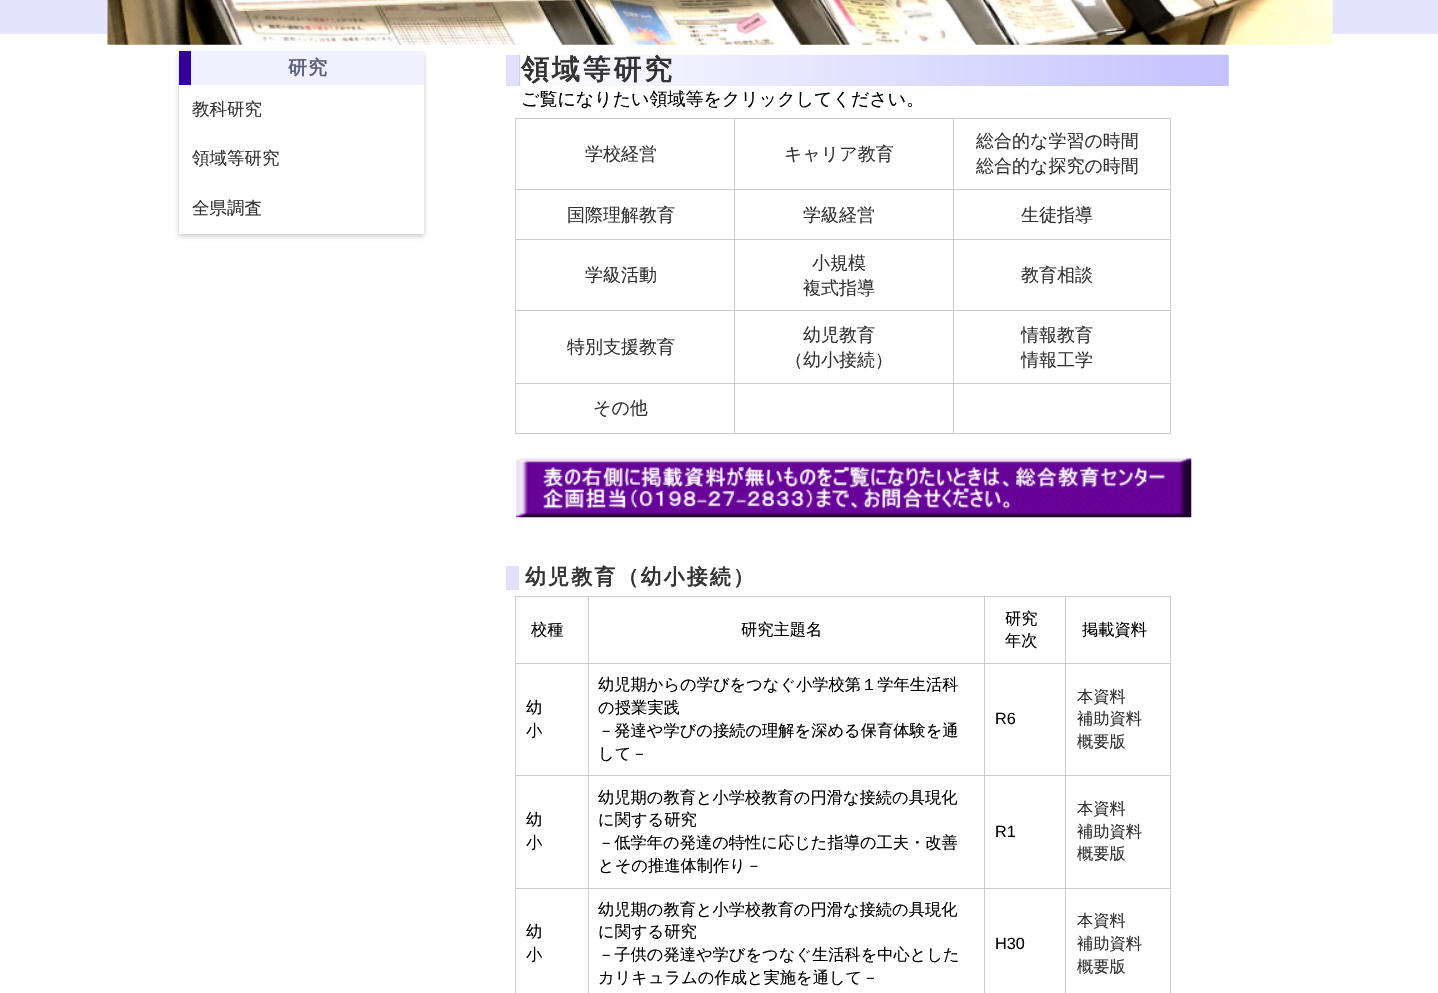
#include "include/core/SkBlurTypes.h"
#include "include/core/SkCanvas.h"
#include "include/core/SkData.h"
#include "include/core/SkFont.h"
#include "include/core/SkFontMgr.h"
#include "include/core/SkImage.h"
#include "include/core/SkMaskFilter.h"
#include "include/core/SkPaint.h"
#include "include/core/SkPathBuilder.h"
#include "include/core/SkTextBlob.h"
#include "include/effects/SkDashPathEffect.h"
#include "include/effects/SkGradientShader.h"
#include "include/utils/SkParsePath.h"

extern sk_sp<SkFontMgr> fontMgr;

void draw(SkCanvas* canvas) {
  SkPaint p;
  p.setAntiAlias(true);
  auto spacedText = [&](const char* s, float x, float y, const SkFont& font, const SkPaint& ink, float letter, float word) {
    std::vector<SkGlyphID> glyphs(font.countText(s, strlen(s), SkTextEncoding::kUTF8));
    std::vector<float> xs(glyphs.size());
    font.textToGlyphs(s, strlen(s), SkTextEncoding::kUTF8, glyphs);
    font.getXPos(glyphs, xs, x);
    float extra = 0;
    for (size_t i = 0; i < glyphs.size(); i++) {
      xs[i] += extra;
      extra += letter + word * (glyphs[i] == font.unicharToGlyph(' '));
    }
    canvas->drawTextBlob(SkTextBlob::MakeFromPosHGlyphs(glyphs, xs, y, font), 0, 0, ink);
  };
  canvas->clear(SK_ColorWHITE);
  p.setColor(SkColorSetRGB(228, 228, 255));
  canvas->drawRect(SkRect::MakeLTRB(0, 0, 1438, 34), p);
  canvas->drawImageRect(SkImages::DeferredFromEncodedData(SkData::MakeFromFileName("images/1.png")), SkRect::MakeLTRB(107, 0, 1333, 45), SkSamplingOptions());
  p.setColor(SkColorSetARGB(56, 0, 0, 0));
  p.setMaskFilter(SkMaskFilter::MakeBlur(kNormal_SkBlurStyle, 2.5f));
  canvas->drawRect(SkRect::MakeLTRB(179, 54, 424, 236), p);
  p.setMaskFilter(nullptr);
  p.setColor(SkColorSetRGB(240, 240, 255));
  canvas->drawRect(SkRect::MakeLTRB(191, 51, 424, 85), p);
  p.setColor(SkColorSetRGB(51, 0, 153));
  canvas->drawRect(SkRect::MakeLTRB(179, 51, 191, 85), p);
  p.setColor(SK_ColorWHITE);
  canvas->drawRect(SkRect::MakeLTRB(179, 85, 424, 234), p);
  canvas->drawImageRect(SkImages::DeferredFromEncodedData(SkData::MakeFromFileName("images/2.png")), SkRect::MakeLTRB(518, 54, 1229, 86), SkSamplingOptions());
  p.setColor(SkColorSetRGB(225, 225, 255));
  canvas->drawRect(SkRect::MakeLTRB(506, 55, 519, 86), p);
  p.setColor(SkColorSetRGB(204, 204, 204));
  canvas->drawRect(SkRect::MakeLTRB(515, 118, 1171, 119), p);
  canvas->drawRect(SkRect::MakeLTRB(515, 118, 516, 434), p);
  canvas->drawRect(SkRect::MakeLTRB(1170, 118, 1171, 434), p);
  canvas->drawRect(SkRect::MakeLTRB(953, 433, 1171, 434), p);
  canvas->drawRect(SkRect::MakeLTRB(953, 383, 954, 434), p);
  canvas->drawRect(SkRect::MakeLTRB(953, 383, 1171, 384), p);
  canvas->drawRect(SkRect::MakeLTRB(953, 310, 954, 384), p);
  canvas->drawRect(SkRect::MakeLTRB(953, 310, 1171, 311), p);
  canvas->drawRect(SkRect::MakeLTRB(953, 239, 954, 311), p);
  canvas->drawRect(SkRect::MakeLTRB(953, 239, 1171, 240), p);
  canvas->drawRect(SkRect::MakeLTRB(953, 189, 954, 240), p);
  canvas->drawRect(SkRect::MakeLTRB(953, 189, 1171, 190), p);
  canvas->drawRect(SkRect::MakeLTRB(953, 118, 954, 190), p);
  canvas->drawRect(SkRect::MakeLTRB(734, 433, 954, 434), p);
  canvas->drawRect(SkRect::MakeLTRB(734, 383, 735, 434), p);
  canvas->drawRect(SkRect::MakeLTRB(734, 383, 954, 384), p);
  canvas->drawRect(SkRect::MakeLTRB(734, 310, 735, 384), p);
  canvas->drawRect(SkRect::MakeLTRB(734, 310, 954, 311), p);
  canvas->drawRect(SkRect::MakeLTRB(734, 239, 735, 311), p);
  canvas->drawRect(SkRect::MakeLTRB(734, 239, 954, 240), p);
  canvas->drawRect(SkRect::MakeLTRB(734, 189, 735, 240), p);
  canvas->drawRect(SkRect::MakeLTRB(734, 189, 954, 190), p);
  canvas->drawRect(SkRect::MakeLTRB(734, 118, 735, 190), p);
  canvas->drawRect(SkRect::MakeLTRB(515, 189, 735, 190), p);
  canvas->drawRect(SkRect::MakeLTRB(515, 239, 735, 240), p);
  canvas->drawRect(SkRect::MakeLTRB(515, 310, 735, 311), p);
  canvas->drawRect(SkRect::MakeLTRB(515, 383, 735, 384), p);
  canvas->drawRect(SkRect::MakeLTRB(515, 433, 735, 434), p);
  canvas->drawImageRect(SkImages::DeferredFromEncodedData(SkData::MakeFromFileName("images/3.png")), SkRect::MakeLTRB(516, 458, 1192, 518), SkSamplingOptions());
  p.setColor(SkColorSetRGB(225, 225, 255));
  canvas->drawRect(SkRect::MakeLTRB(506, 566, 519, 590), p);
  p.setColor(SkColorSetRGB(204, 204, 204));
  canvas->drawRect(SkRect::MakeLTRB(515, 596, 1171, 597), p);
  canvas->drawRect(SkRect::MakeLTRB(515, 596, 516, 993), p);
  canvas->drawRect(SkRect::MakeLTRB(1065, 663, 1171, 664), p);
  canvas->drawRect(SkRect::MakeLTRB(1065, 775, 1171, 776), p);
  canvas->drawRect(SkRect::MakeLTRB(1065, 888, 1171, 889), p);
  canvas->drawRect(SkRect::MakeLTRB(1065, 888, 1066, 993), p);
  canvas->drawRect(SkRect::MakeLTRB(984, 888, 1066, 889), p);
  canvas->drawRect(SkRect::MakeLTRB(1065, 775, 1066, 889), p);
  canvas->drawRect(SkRect::MakeLTRB(984, 775, 1066, 776), p);
  canvas->drawRect(SkRect::MakeLTRB(1065, 663, 1066, 776), p);
  canvas->drawRect(SkRect::MakeLTRB(984, 663, 1066, 664), p);
  canvas->drawRect(SkRect::MakeLTRB(984, 888, 985, 993), p);
  canvas->drawRect(SkRect::MakeLTRB(588, 888, 985, 889), p);
  canvas->drawRect(SkRect::MakeLTRB(984, 775, 985, 889), p);
  canvas->drawRect(SkRect::MakeLTRB(588, 775, 985, 776), p);
  canvas->drawRect(SkRect::MakeLTRB(984, 663, 985, 776), p);
  canvas->drawRect(SkRect::MakeLTRB(588, 663, 985, 664), p);
  canvas->drawRect(SkRect::MakeLTRB(588, 888, 589, 993), p);
  canvas->drawRect(SkRect::MakeLTRB(515, 888, 589, 889), p);
  canvas->drawRect(SkRect::MakeLTRB(588, 775, 589, 889), p);
  canvas->drawRect(SkRect::MakeLTRB(515, 775, 589, 776), p);
  canvas->drawRect(SkRect::MakeLTRB(588, 663, 589, 776), p);
  canvas->drawRect(SkRect::MakeLTRB(515, 663, 589, 664), p);
  canvas->drawRect(SkRect::MakeLTRB(588, 596, 589, 664), p);
  canvas->drawRect(SkRect::MakeLTRB(984, 596, 985, 664), p);
  canvas->drawRect(SkRect::MakeLTRB(1065, 596, 1066, 664), p);
  canvas->drawRect(SkRect::MakeLTRB(1170, 888, 1171, 993), p);
  canvas->drawRect(SkRect::MakeLTRB(1170, 775, 1171, 889), p);
  canvas->drawRect(SkRect::MakeLTRB(1170, 596, 1171, 776), p);
  SkFont font1(fontMgr->matchFamilyStyle("WenQuanYi Zen Hei", SkFontStyle::Bold()), 19);
  font1.setSubpixel(true);
  p.setColor(SkColorSetRGB(93, 98, 123));
  spacedText("研究", 288, 74, font1, p, 1, 0);
  SkFont font2(fontMgr->matchFamilyStyle("WenQuanYi Zen Hei", SkFontStyle(500, SkFontStyle::kNormal_Width, SkFontStyle::kUpright_Slant)), 17.5f);
  font2.setSubpixel(true);
  p.setColor(SkColorSetRGB(51, 51, 51));
  canvas->drawString("教科研究", 192, 115, font2, p);
  canvas->drawString("領域等研究", 192, 164, font2, p);
  canvas->drawString("全県調査", 192, 214, font2, p);
  SkFont font3(fontMgr->matchFamilyStyle("WenQuanYi Zen Hei", SkFontStyle::Bold()), 28);
  font3.setSubpixel(true);
  spacedText("領域等研究", 521, 79, font3, p, 2.75f, 0);
  SkFont font4(fontMgr->matchFamilyStyle("WenQuanYi Zen Hei", SkFontStyle(500, SkFontStyle::kNormal_Width, SkFontStyle::kUpright_Slant)), 18);
  font4.setSubpixel(true);
  p.setColor(SK_ColorBLACK);
  canvas->drawString("ご覧になりたい領域等をクリックしてください。", 521, 105, font4, p);
  p.setColor(SkColorSetRGB(51, 51, 51));
  canvas->drawString("学校経営", 585, 160, font4, p);
  canvas->drawString("キャリア教育", 784, 160, font4, p);
  canvas->drawString("総合的な学習の時間", 976, 147, font4, p);
  canvas->drawString("総合的な探究の時間", 976, 172, font4, p);
  canvas->drawString("国際理解教育", 567, 221, font4, p);
  canvas->drawString("学級経営", 803, 221, font4, p);
  canvas->drawString("生徒指導", 1021, 221, font4, p);
  canvas->drawString("学級活動", 585, 281, font4, p);
  canvas->drawString("小規模", 812, 269, font4, p);
  canvas->drawString("複式指導", 803, 294, font4, p);
  canvas->drawString("教育相談", 1021, 281, font4, p);
  canvas->drawString("特別支援教育", 567, 353, font4, p);
  canvas->drawString("幼児教育", 803, 341, font4, p);
  canvas->drawString("（幼小接続）", 785, 366, font4, p);
  canvas->drawString("情報教育", 1021, 341, font4, p);
  canvas->drawString("情報工学", 1021, 366, font4, p);
  canvas->drawString("その他", 593, 414, font4, p);
  SkFont font5(fontMgr->matchFamilyStyle("WenQuanYi Zen Hei", SkFontStyle::Bold()), 21);
  font5.setSubpixel(true);
  spacedText("幼児教育（幼小接続）", 525, 584, font5, p, 2.1f, 0);
  SkFont font6(fontMgr->matchFamilyStyle("WenQuanYi Zen Hei", SkFontStyle(500, SkFontStyle::kNormal_Width, SkFontStyle::kUpright_Slant)), 16.25f);
  font6.setSubpixel(true);
  p.setColor(SK_ColorBLACK);
  canvas->drawString("校種", 531, 635, font6, p);
  canvas->drawString("研究主題名", 741, 635, font6, p);
  canvas->drawString("研究", 1005, 624, font6, p);
  canvas->drawString("年次", 1005, 646, font6, p);
  canvas->drawString("掲載資料", 1082, 635, font6, p);
  canvas->drawString("幼", 526, 713, font6, p);
  canvas->drawString("小", 526, 736, font6, p);
  canvas->drawString("幼児期からの学びをつなぐ小学校第１学年生活科", 598, 690, font6, p);
  canvas->drawString("の授業実践", 598, 713, font6, p);
  canvas->drawString("－発達や学びの接続の理解を深める保育体験を通", 598, 736, font6, p);
  canvas->drawString("して－", 598, 759, font6, p);
  SkFont font7(fontMgr->matchFamilyStyle("Liberation Sans", SkFontStyle::Normal()), 16.25f);
  font7.setSubpixel(true);
  canvas->drawString("R6", 995, 724, font7, p);
  p.setColor(SkColorSetRGB(51, 51, 51));
  canvas->drawString("本資料", 1077, 702, font6, p);
  canvas->drawString("補助資料", 1077, 724, font6, p);
  canvas->drawString("概要版", 1077, 747, font6, p);
  p.setColor(SK_ColorBLACK);
  canvas->drawString("幼", 526, 825, font6, p);
  canvas->drawString("小", 526, 848, font6, p);
  canvas->drawString("幼児期の教育と小学校教育の円滑な接続の具現化", 598, 803, font6, p);
  canvas->drawString("に関する研究", 598, 825, font6, p);
  canvas->drawString("－低学年の発達の特性に応じた指導の工夫・改善", 598, 848, font6, p);
  canvas->drawString("とその推進体制作り－", 598, 871, font6, p);
  canvas->drawString("R1", 995, 837, font7, p);
  p.setColor(SkColorSetRGB(51, 51, 51));
  canvas->drawString("本資料", 1077, 814, font6, p);
  canvas->drawString("補助資料", 1077, 837, font6, p);
  canvas->drawString("概要版", 1077, 859, font6, p);
  p.setColor(SK_ColorBLACK);
  canvas->drawString("幼", 526, 937, font6, p);
  canvas->drawString("小", 526, 960, font6, p);
  canvas->drawString("幼児期の教育と小学校教育の円滑な接続の具現化", 598, 915, font6, p);
  canvas->drawString("に関する研究", 598, 937, font6, p);
  canvas->drawString("－子供の発達や学びをつなぐ生活科を中心とした", 598, 960, font6, p);
  canvas->drawString("カリキュラムの作成と実施を通して－", 598, 983, font6, p);
  canvas->drawString("H30", 995, 949, font7, p);
  p.setColor(SkColorSetRGB(51, 51, 51));
  canvas->drawString("本資料", 1077, 926, font6, p);
  canvas->drawString("補助資料", 1077, 949, font6, p);
  canvas->drawString("概要版", 1077, 972, font6, p);
}
